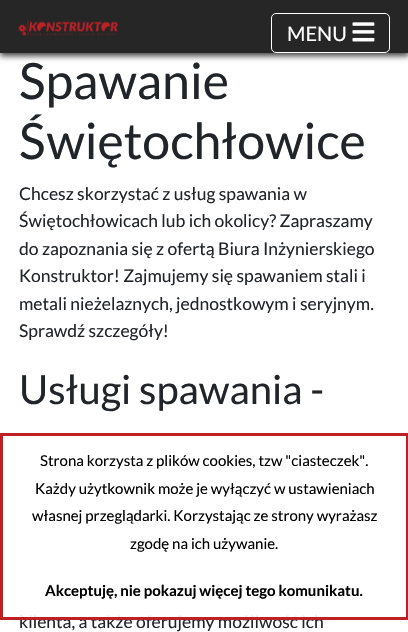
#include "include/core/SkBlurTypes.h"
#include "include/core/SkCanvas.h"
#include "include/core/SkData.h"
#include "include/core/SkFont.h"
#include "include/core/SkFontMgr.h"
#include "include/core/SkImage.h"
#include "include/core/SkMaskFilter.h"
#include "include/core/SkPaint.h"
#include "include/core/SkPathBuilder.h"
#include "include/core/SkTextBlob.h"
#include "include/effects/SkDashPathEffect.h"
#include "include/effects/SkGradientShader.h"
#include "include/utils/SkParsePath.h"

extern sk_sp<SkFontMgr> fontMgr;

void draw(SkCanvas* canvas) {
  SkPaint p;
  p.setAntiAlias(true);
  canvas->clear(SK_ColorWHITE);
  canvas->save();
  canvas->clipPath(SkPathBuilder(SkPathFillType::kEvenOdd).moveTo(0, 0).lineTo(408, 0).lineTo(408, 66).lineTo(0, 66).close().moveTo(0, 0).lineTo(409, 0).lineTo(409, 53).lineTo(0, 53).close().detach(), true);
  p.setColor(SkColorSetARGB(191, 0, 0, 0));
  p.setMaskFilter(SkMaskFilter::MakeBlur(kNormal_SkBlurStyle, 3));
  canvas->drawRect(SkRect::MakeLTRB(0, 4, 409, 56), p);
  p.setMaskFilter(nullptr);
  canvas->restore();
  p.setColor(SkColorSetARGB(217, 0, 0, 0));
  canvas->drawRect(SkRect::MakeLTRB(0, 0, 408, 53), p);
  canvas->drawImageRect(SkImages::DeferredFromEncodedData(SkData::MakeFromFileName("images/1.png")), SkRect::MakeLTRB(18, 19, 118, 36), SkSamplingOptions());
  p.setStyle(SkPaint::kStroke_Style);
  p.setStrokeWidth(1);
  p.setColor(SK_ColorWHITE);
  canvas->drawRoundRect(SkRect::MakeLTRB(271.5f, 13.5f, 389.5f, 52.5f), 4.5f, 4.5f, p);
  canvas->drawImageRect(SkImages::DeferredFromEncodedData(SkData::MakeFromFileName("images/2.png")), SkRect::MakeLTRB(352, 22, 375, 42), SkSamplingOptions());
  SkFont font1(fontMgr->matchFamilyStyle("Lato", SkFontStyle::Normal()), 20);
  font1.setSubpixel(true);
  p.setStyle(SkPaint::kFill_Style);
  canvas->drawString("MENU", 287, 41, font1, p);
  SkFont font2(fontMgr->matchFamilyStyle("Lato", SkFontStyle::Normal()), 50);
  font2.setSubpixel(true);
  p.setColor(SkColorSetRGB(33, 37, 41));
  canvas->drawString("Spawanie", 19, 99, font2, p);
  canvas->drawString("Świętochłowice", 19, 159, font2, p);
  SkFont font3(fontMgr->matchFamilyStyle("Lato", SkFontStyle::Normal()), 17.5f);
  font3.setSubpixel(true);
  canvas->drawString("Chcesz skorzystać z usług spawania w", 19, 200, font3, p);
  canvas->drawString("Świętochłowicach lub ich okolicy? Zapraszamy", 19, 227, font3, p);
  canvas->drawString("do zapoznania się z ofertą Biura Inżynierskiego", 19, 255, font3, p);
  canvas->drawString("Konstruktor! Zajmujemy się spawaniem stali i", 19, 282, font3, p);
  canvas->drawString("metali nieżelaznych, jednostkowym i seryjnym.", 19, 310, font3, p);
  canvas->drawString("Sprawdź szczegóły!", 19, 337, font3, p);
  SkFont font4(fontMgr->matchFamilyStyle("Lato", SkFontStyle::Normal()), 40);
  font4.setSubpixel(true);
  canvas->drawString("Usługi spawania -", 19, 404, font4, p);
  canvas->drawString("klienta, a także oferujemy możliwość ich", 19, 628, font3, p);
  p.setColor(SkColorSetARGB(230, 255, 255, 255));
  canvas->drawRect(SkRect::MakeLTRB(20, 615, 317, 617), p);
  p.setStyle(SkPaint::kStroke_Style);
  p.setStrokeWidth(3);
  p.setColor(SkColorSetRGB(191, 32, 38));
  canvas->drawRect(SkRect::MakeLTRB(1.5f, 434.5f, 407.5f, 618.5f), p);
  SkFont font5(fontMgr->matchFamilyStyle("Lato", SkFontStyle::Normal()), 15);
  font5.setSubpixel(true);
  p.setStyle(SkPaint::kFill_Style);
  p.setColor(SK_ColorBLACK);
  canvas->drawString("Strona korzysta z plików cookies, tzw \"ciasteczek\".", 40, 466, font5, p);
  canvas->drawString("Każdy użytkownik może je wyłączyć w ustawieniach", 35, 494, font5, p);
  canvas->drawString("własnej przeglądarki. Korzystając ze strony wyrażasz", 32, 521, font5, p);
  canvas->drawString("zgodę na ich używanie.", 130, 549, font5, p);
  SkFont font6(fontMgr->matchFamilyStyle("Lato", SkFontStyle::Bold()), 15);
  font6.setSubpixel(true);
  canvas->drawString("Akceptuję, nie pokazuj więcej tego komunikatu.", 45, 596, font6, p);
}
